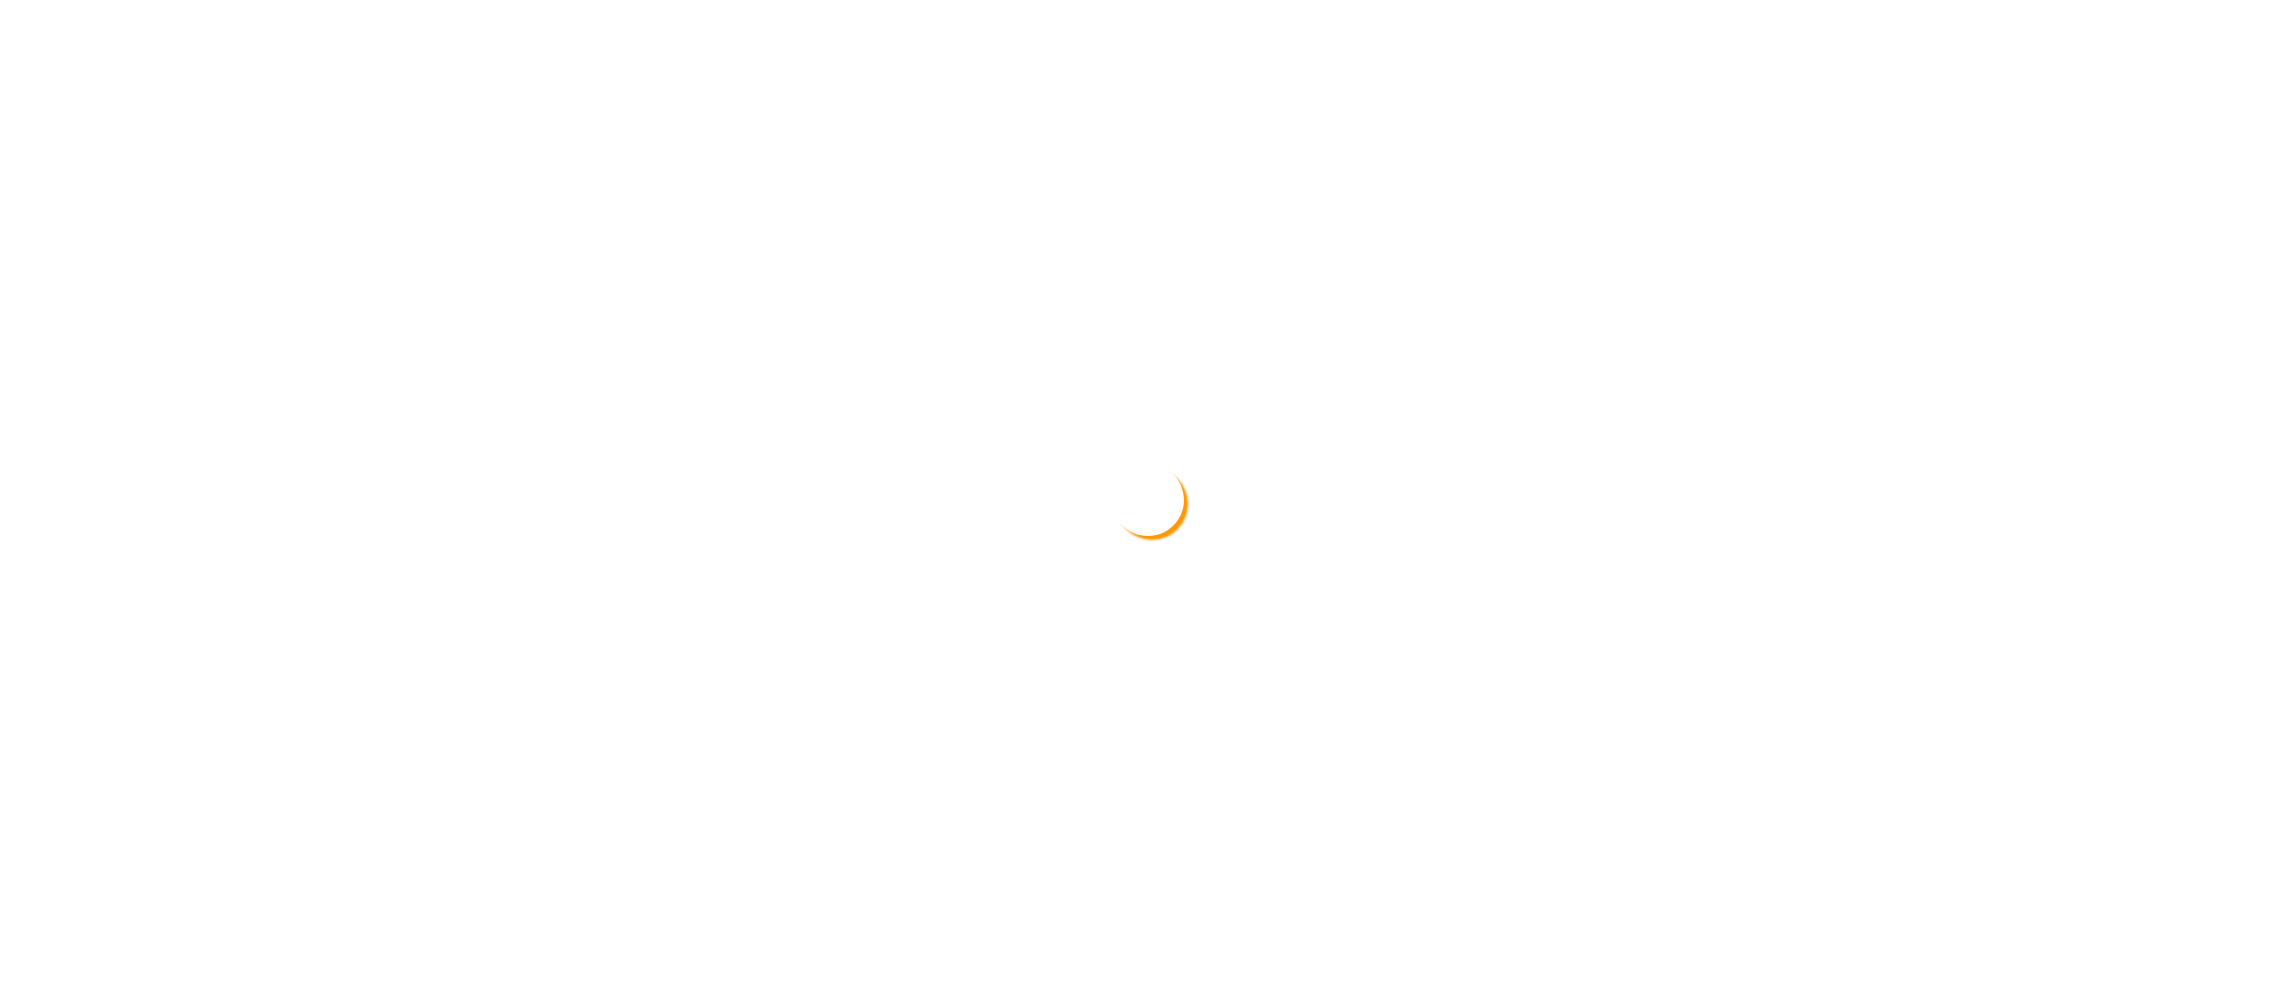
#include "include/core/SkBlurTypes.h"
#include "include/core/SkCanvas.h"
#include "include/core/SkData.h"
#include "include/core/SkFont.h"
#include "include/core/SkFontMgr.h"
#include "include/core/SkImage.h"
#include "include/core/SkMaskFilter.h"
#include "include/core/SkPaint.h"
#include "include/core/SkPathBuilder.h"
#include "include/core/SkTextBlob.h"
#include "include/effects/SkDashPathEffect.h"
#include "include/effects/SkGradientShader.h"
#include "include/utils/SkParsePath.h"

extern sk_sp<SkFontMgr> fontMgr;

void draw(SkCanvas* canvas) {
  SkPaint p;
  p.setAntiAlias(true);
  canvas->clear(SK_ColorWHITE);
  canvas->save();
  canvas->clipPath(SkPathBuilder(SkPathFillType::kEvenOdd).moveTo(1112, 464).lineTo(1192, 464).lineTo(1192, 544).lineTo(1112, 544).close().moveTo(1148, 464).cubicTo(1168, 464, 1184, 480, 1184, 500).cubicTo(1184, 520, 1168, 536, 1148, 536).cubicTo(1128, 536, 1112, 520, 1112, 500).cubicTo(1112, 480, 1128, 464, 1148, 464).close().detach(), true);
  p.setColor(SkColorSetRGB(255, 151, 0));
  p.setMaskFilter(SkMaskFilter::MakeBlur(kNormal_SkBlurStyle, 1));
  canvas->drawRoundRect(SkRect::MakeLTRB(1116, 468, 1188, 540), 36, 36, p);
  p.setMaskFilter(nullptr);
  canvas->restore();
}
